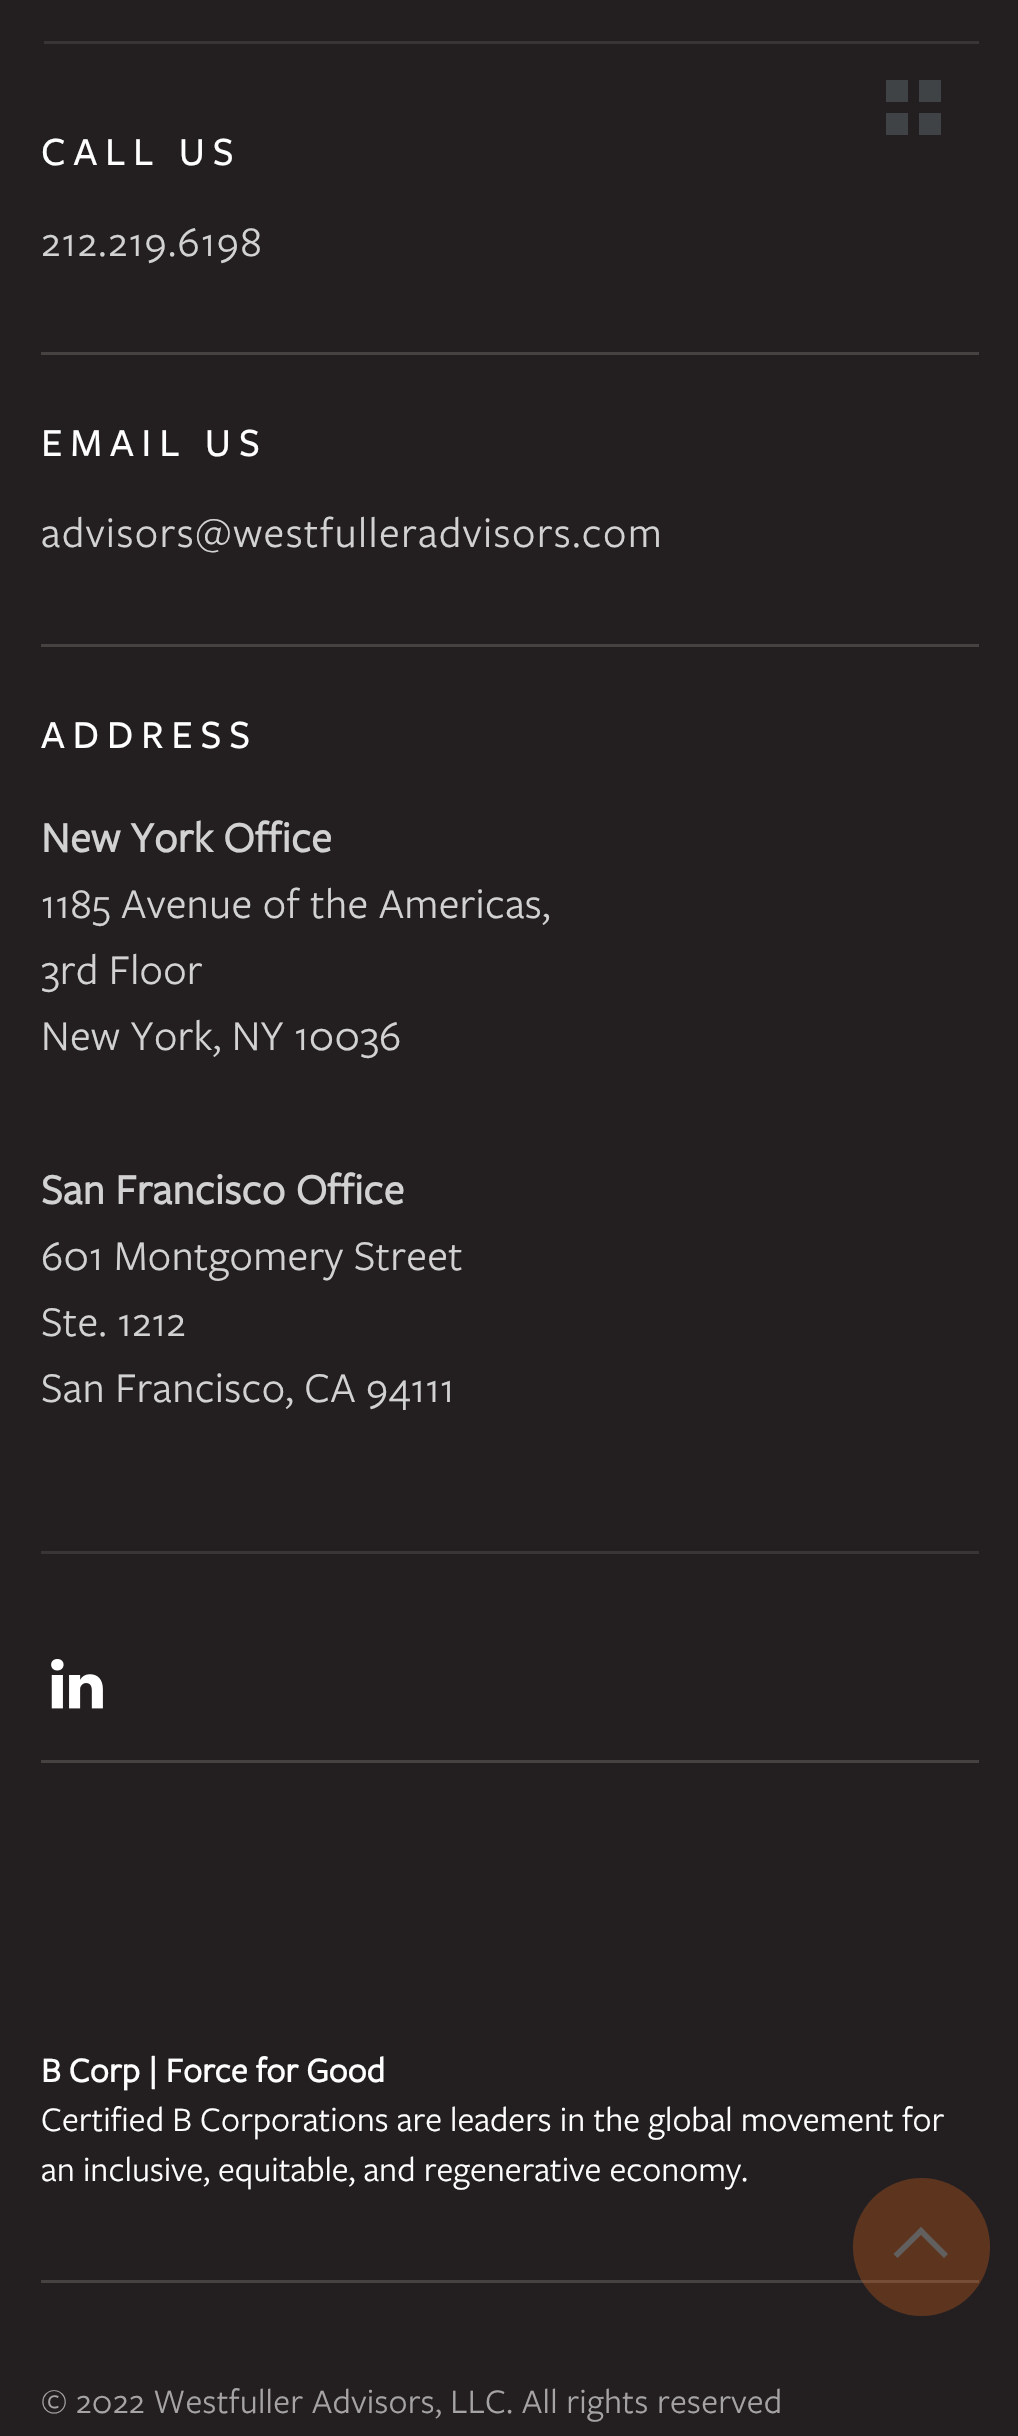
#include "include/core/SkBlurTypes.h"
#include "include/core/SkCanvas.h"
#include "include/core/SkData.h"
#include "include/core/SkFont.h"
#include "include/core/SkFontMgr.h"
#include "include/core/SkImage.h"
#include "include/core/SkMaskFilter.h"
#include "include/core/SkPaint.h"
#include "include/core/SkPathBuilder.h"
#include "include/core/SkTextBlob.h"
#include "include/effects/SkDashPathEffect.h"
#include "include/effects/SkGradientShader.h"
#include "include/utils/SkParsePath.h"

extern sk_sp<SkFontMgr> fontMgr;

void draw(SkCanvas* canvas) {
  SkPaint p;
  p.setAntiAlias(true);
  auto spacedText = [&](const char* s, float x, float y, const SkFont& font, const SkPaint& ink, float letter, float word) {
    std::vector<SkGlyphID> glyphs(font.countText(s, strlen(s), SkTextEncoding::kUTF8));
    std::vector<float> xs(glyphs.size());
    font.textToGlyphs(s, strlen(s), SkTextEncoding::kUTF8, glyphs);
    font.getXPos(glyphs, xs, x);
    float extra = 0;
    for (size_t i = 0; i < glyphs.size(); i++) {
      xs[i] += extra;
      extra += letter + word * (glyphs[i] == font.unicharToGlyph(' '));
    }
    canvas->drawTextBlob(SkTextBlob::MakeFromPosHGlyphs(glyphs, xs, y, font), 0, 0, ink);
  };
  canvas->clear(SkColorSetRGB(35, 31, 32));
  p.setColor(SkColorSetRGB(64, 67, 70));
  canvas->drawRect(SkRect::MakeLTRB(886, 80, 908, 102), p);
  canvas->drawRect(SkRect::MakeLTRB(919, 80, 941, 102), p);
  canvas->drawRect(SkRect::MakeLTRB(886, 113, 908, 135), p);
  canvas->drawRect(SkRect::MakeLTRB(919, 113, 941, 135), p);
  p.setColor(SkColorSetRGB(57, 53, 54));
  canvas->drawRect(SkRect::MakeLTRB(44, 41, 979, 44), p);
  p.setColor(SkColorSetRGB(70, 66, 65));
  canvas->drawRect(SkRect::MakeLTRB(41, 352, 979, 355), p);
  canvas->drawRect(SkRect::MakeLTRB(41, 644, 979, 647), p);
  p.setColor(SkColorSetRGB(57, 53, 54));
  canvas->drawRect(SkRect::MakeLTRB(41, 1551, 979, 1554), p);
  canvas->drawImageRect(SkImages::DeferredFromEncodedData(SkData::MakeFromFileName("images/1.png")), SkRect::MakeLTRB(51, 1659, 103, 1709), SkSamplingOptions());
  p.setColor(SkColorSetRGB(70, 66, 65));
  canvas->drawRect(SkRect::MakeLTRB(41, 1760, 979, 1763), p);
  canvas->drawRect(SkRect::MakeLTRB(41, 2280, 979, 2283), p);
  p.setColor(SkColorSetARGB(71, 242, 107, 28));
  canvas->drawRoundRect(SkRect::MakeLTRB(853, 2178, 990, 2316), 68.5f, 68.5f, p);
  p.setColor(SkColorSetRGB(98, 95, 95));
  canvas->drawPath(SkPathBuilder().moveTo(921, 2227).lineTo(948, 2254).lineTo(944, 2258).lineTo(917, 2231).close().detach(), p);
  canvas->drawPath(SkPathBuilder().moveTo(921, 2227).lineTo(925, 2231).lineTo(897.5f, 2258).lineTo(893.5f, 2254).close().detach(), p);
  SkFont font1(fontMgr->matchFamilyStyle("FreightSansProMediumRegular", SkFontStyle(500, SkFontStyle::kNormal_Width, SkFontStyle::kUpright_Slant)), 41.25f);
  font1.setSubpixel(true);
  p.setColor(SK_ColorWHITE);
  spacedText("CALL US", 41, 165, font1, p, 7.75f, 0);
  SkFont font2(fontMgr->matchFamilyStyle("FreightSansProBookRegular", SkFontStyle::Normal()), 44);
  font2.setSubpixel(true);
  p.setColor(SkColorSetRGB(211, 210, 210));
  spacedText("212.219.6198", 41, 256, font2, p, 1.4f, 0);
  p.setColor(SK_ColorWHITE);
  spacedText("EMAIL US", 41, 456, font1, p, 7.75f, 0);
  p.setColor(SkColorSetRGB(211, 210, 210));
  spacedText("advisors@westfulleradvisors.com", 41, 547, font2, p, 1.4f, 0);
  p.setColor(SK_ColorWHITE);
  spacedText("ADDRESS", 41, 748, font1, p, 7.75f, 0);
  SkFont font3(fontMgr->matchFamilyStyle("FreightSansProBookRegular", SkFontStyle::Bold()), 44);
  font3.setSubpixel(true);
  p.setColor(SkColorSetRGB(211, 210, 210));
  spacedText("New York Office", 41, 852, font3, p, 0.28f, 0);
  spacedText("1185 Avenue of the Americas,", 41, 918, font2, p, 0.28f, 0);
  spacedText("3rd Floor", 41, 984, font2, p, 0.28f, 0);
  spacedText("New York, NY 10036", 41, 1050, font2, p, 0.28f, 0);
  spacedText("San Francisco Office", 41, 1204, font3, p, 0.28f, 0);
  spacedText("601 Montgomery Street", 41, 1270, font2, p, 0.28f, 0);
  spacedText("Ste. 1212", 41, 1336, font2, p, 0.28f, 0);
  spacedText("San Francisco, CA 94111", 41, 1402, font2, p, 0.28f, 0);
  SkFont font4(fontMgr->matchFamilyStyle("FreightSansProBookRegular", SkFontStyle::Bold()), 35.75f);
  font4.setSubpixel(true);
  p.setColor(SK_ColorWHITE);
  canvas->drawString("B Corp | Force for Good", 41, 2082, font4, p);
  SkFont font5(fontMgr->matchFamilyStyle("FreightSansProBookRegular", SkFontStyle::Normal()), 35.75f);
  font5.setSubpixel(true);
  canvas->drawString("Certified B Corporations are leaders in the global movement for", 41, 2131, font5, p);
  canvas->drawString("an inclusive, equitable, and regenerative economy.", 41, 2181, font5, p);
  p.setColor(SkColorSetRGB(165, 163, 164));
  spacedText("© 2022 Westfuller Advisors, LLC. All rights reserved", 41, 2413, font5, p, 0.28f, 0);
}
